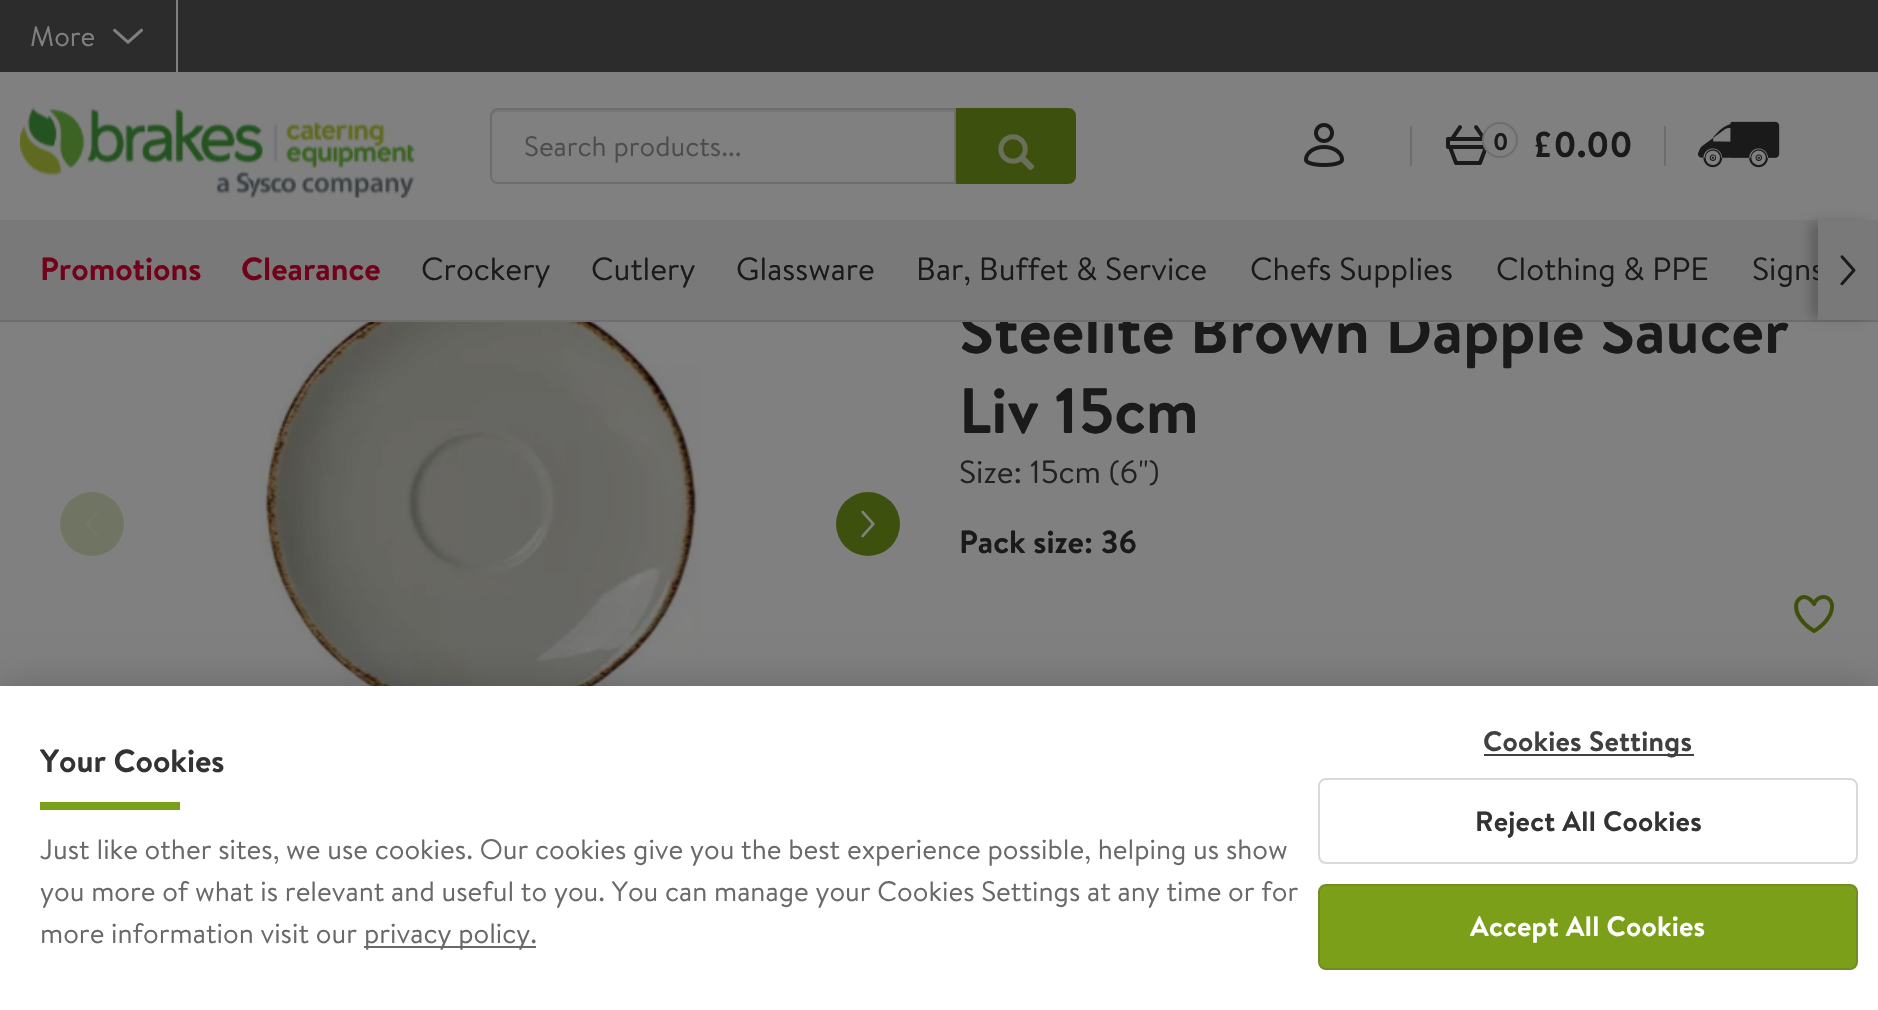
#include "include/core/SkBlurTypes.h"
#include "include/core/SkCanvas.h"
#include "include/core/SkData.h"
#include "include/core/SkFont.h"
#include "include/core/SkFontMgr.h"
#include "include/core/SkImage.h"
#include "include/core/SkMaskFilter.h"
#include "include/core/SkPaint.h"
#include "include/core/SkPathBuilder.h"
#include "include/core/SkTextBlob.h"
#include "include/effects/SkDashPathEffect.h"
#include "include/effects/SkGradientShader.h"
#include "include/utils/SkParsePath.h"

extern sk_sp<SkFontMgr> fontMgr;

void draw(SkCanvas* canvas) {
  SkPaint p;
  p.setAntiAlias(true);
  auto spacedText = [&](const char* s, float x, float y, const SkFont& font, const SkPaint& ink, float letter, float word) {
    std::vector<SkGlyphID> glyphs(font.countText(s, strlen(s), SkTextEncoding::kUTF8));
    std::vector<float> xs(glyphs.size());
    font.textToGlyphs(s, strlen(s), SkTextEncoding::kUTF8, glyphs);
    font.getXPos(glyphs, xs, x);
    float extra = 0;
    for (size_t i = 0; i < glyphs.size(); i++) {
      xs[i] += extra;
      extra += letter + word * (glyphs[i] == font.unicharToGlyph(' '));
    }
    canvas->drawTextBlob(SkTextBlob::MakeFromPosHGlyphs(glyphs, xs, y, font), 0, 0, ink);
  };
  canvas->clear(SkColorSetRGB(128, 128, 128));
  p.setColor(SkColorSetRGB(44, 44, 45));
  canvas->drawRect(SkRect::MakeLTRB(0, 0, 1878, 72), p);
  p.setColor(SkColorSetRGB(128, 128, 128));
  canvas->drawRect(SkRect::MakeLTRB(176, 0, 178, 72), p);
  canvas->drawImageRect(SkImages::DeferredFromEncodedData(SkData::MakeFromFileName("images/1.png")), SkRect::MakeLTRB(113, 28, 143, 44), SkSamplingOptions());
  canvas->drawImageRect(SkImages::DeferredFromEncodedData(SkData::MakeFromFileName("images/2.png")), SkRect::MakeLTRB(20, 107, 415, 198), SkSamplingOptions());
  p.setColor(SkColorSetRGB(118, 118, 118));
  canvas->drawPath(SkPathBuilder().moveTo(498, 112).lineTo(954, 112).lineTo(954, 110).lineTo(498, 110).cubicTo(493, 110, 492, 114, 492, 118).cubicTo(492, 115, 495, 112, 498, 112).close().detach(), p);
  p.setStyle(SkPaint::kStroke_Style);
  p.setStrokeWidth(2);
  p.setColor(SkColorSetRGB(109, 109, 109));
  canvas->drawPath(SkPathBuilder().moveTo(498, 109).lineTo(955, 109).lineTo(955, 183).lineTo(498, 183).cubicTo(494, 183, 491, 180, 491, 176).lineTo(491, 116).cubicTo(491, 112, 494, 109, 498, 109).close().detach(), p);
  p.setStyle(SkPaint::kFill_Style);
  p.setColor(SkColorSetRGB(62, 80, 13));
  canvas->drawPath(SkPathBuilder().moveTo(956, 108).lineTo(1068, 108).cubicTo(1072.5f, 108, 1076, 111.5f, 1076, 116).lineTo(1076, 176).cubicTo(1076, 180.5f, 1072.5f, 184, 1068, 184).lineTo(956, 184).close().detach(), p);
  canvas->drawImageRect(SkImages::DeferredFromEncodedData(SkData::MakeFromFileName("images/3.png")), SkRect::MakeLTRB(998, 134, 1035, 171), SkSamplingOptions());
  canvas->drawImageRect(SkImages::DeferredFromEncodedData(SkData::MakeFromFileName("images/4.png")), SkRect::MakeLTRB(1304, 123, 1344, 167), SkSamplingOptions());
  p.setColor(SkColorSetRGB(109, 109, 109));
  canvas->drawRect(SkRect::MakeLTRB(1410, 126, 1412, 166), p);
  canvas->drawImageRect(SkImages::DeferredFromEncodedData(SkData::MakeFromFileName("images/5.png")), SkRect::MakeLTRB(1446, 125, 1487, 165), SkSamplingOptions());
  p.setColor(SkColorSetRGB(128, 128, 128));
  canvas->drawCircle(1500, 140, 17, p);
  p.setStyle(SkPaint::kStroke_Style);
  p.setColor(SkColorSetRGB(109, 109, 109));
  canvas->drawCircle(1500, 140, 17, p);
  p.setStyle(SkPaint::kFill_Style);
  canvas->drawRect(SkRect::MakeLTRB(1664, 126, 1666, 166), p);
  canvas->drawImageRect(SkImages::DeferredFromEncodedData(SkData::MakeFromFileName("images/6.png")), SkRect::MakeLTRB(1697, 121, 1780, 168), SkSamplingOptions());
  p.setColor(SkColorSetRGB(111, 116, 99));
  canvas->drawCircle(92, 524, 32, p);
  canvas->drawImageRect(SkImages::DeferredFromEncodedData(SkData::MakeFromFileName("images/8.png")), SkRect::MakeLTRB(85, 510, 99, 537), SkSamplingOptions());
  canvas->drawImageRect(SkImages::DeferredFromEncodedData(SkData::MakeFromFileName("images/9.png")), SkRect::MakeLTRB(259, 322, 700, 686), SkSamplingOptions());
  p.setColor(SkColorSetRGB(62, 80, 13));
  canvas->drawCircle(868, 524, 32, p);
  canvas->drawImageRect(SkImages::DeferredFromEncodedData(SkData::MakeFromFileName("images/10.png")), SkRect::MakeLTRB(861, 510, 875, 538), SkSamplingOptions());
  canvas->drawImageRect(SkImages::DeferredFromEncodedData(SkData::MakeFromFileName("images/11.png")), SkRect::MakeLTRB(1794, 595, 1834, 633), SkSamplingOptions());
  p.setColor(SkColorSetARGB(51, 0, 0, 0));
  p.setMaskFilter(SkMaskFilter::MakeBlur(kNormal_SkBlurStyle, 18));
  canvas->drawRect(SkRect::MakeLTRB(0, 686, 1878, 1010), p);
  p.setMaskFilter(nullptr);
  p.setColor(SK_ColorWHITE);
  canvas->drawRect(SkRect::MakeLTRB(0, 686, 1878, 1010), p);
  p.setColor(SkColorSetRGB(124, 159, 25));
  canvas->drawRect(SkRect::MakeLTRB(40, 802, 180, 810), p);
  p.setColor(SkColorSetRGB(105, 105, 105));
  canvas->drawRect(SkRect::MakeLTRB(364, 946, 536, 948), p);
  p.setColor(SkColorSetRGB(64, 64, 64));
  canvas->drawRect(SkRect::MakeLTRB(1484, 754, 1694, 756), p);
  p.setStyle(SkPaint::kStroke_Style);
  p.setColor(SkColorSetRGB(217, 217, 217));
  canvas->drawRoundRect(SkRect::MakeLTRB(1319, 779, 1857, 863), 7, 7, p);
  p.setStyle(SkPaint::kFill_Style);
  p.setColor(SkColorSetRGB(124, 159, 25));
  canvas->drawRoundRect(SkRect::MakeLTRB(1319, 885, 1857, 969), 7, 7, p);
  p.setStyle(SkPaint::kStroke_Style);
  p.setColor(SkColorSetRGB(112, 141, 35));
  canvas->drawRoundRect(SkRect::MakeLTRB(1319, 885, 1857, 969), 7, 7, p);
  SkFont font1(fontMgr->matchFamilyStyle("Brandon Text", SkFontStyle::Normal()), 28);
  font1.setSubpixel(true);
  p.setStyle(SkPaint::kFill_Style);
  p.setColor(SkColorSetRGB(128, 128, 128));
  canvas->drawString("More", 30, 46, font1, p);
  p.setColor(SkColorSetRGB(77, 77, 77));
  canvas->drawString("Search products...", 524, 156, font1, p);
  SkFont font2(fontMgr->matchFamilyStyle("Brandon Text", SkFontStyle::Bold()), 24);
  font2.setSubpixel(true);
  p.setColor(SkColorSetRGB(26, 26, 26));
  canvas->drawString("0", 1493, 150, font2, p);
  SkFont font3(fontMgr->matchFamilyStyle("Brandon Text", SkFontStyle::Bold()), 36);
  font3.setSubpixel(true);
  canvas->drawString("£0.00", 1532, 157, font3, p);
  SkFont font4(fontMgr->matchFamilyStyle("Brandon Text", SkFontStyle::Bold()), 64);
  font4.setSubpixel(true);
  canvas->drawString("Steelite Brown Dapple Saucer", 959, 353, font4, p);
  p.setColor(SkColorSetRGB(109, 109, 109));
  canvas->drawRect(SkRect::MakeLTRB(0, 320, 1878, 322), p);
  p.setColor(SkColorSetRGB(121, 121, 121));
  canvas->drawRect(SkRect::MakeLTRB(0, 220, 1818, 320), p);
  p.setColor(SkColorSetARGB(51, 0, 0, 0));
  p.setMaskFilter(SkMaskFilter::MakeBlur(kNormal_SkBlurStyle, 5));
  canvas->drawRect(SkRect::MakeLTRB(1810, 222, 1866, 318), p);
  p.setMaskFilter(nullptr);
  SkFont font5(fontMgr->matchFamilyStyle("Brandon Text", SkFontStyle::Normal()), 32);
  font5.setSubpixel(true);
  p.setColor(SkColorSetRGB(26, 26, 26));
  canvas->drawString("Signs", 1752, 280, font5, p);
  p.setColor(SkColorSetRGB(121, 121, 121));
  canvas->drawRect(SkRect::MakeLTRB(1818, 220, 1878, 320), p);
  canvas->drawImageRect(SkImages::DeferredFromEncodedData(SkData::MakeFromFileName("images/7.png")), SkRect::MakeLTRB(1840, 255, 1856, 286), SkSamplingOptions());
  p.setColor(SkColorSetRGB(26, 26, 26));
  canvas->drawString("Clothing & PPE", 1496, 280, font5, p);
  canvas->drawString("Chefs Supplies", 1250, 280, font5, p);
  canvas->drawString("Bar, Buffet & Service", 916, 280, font5, p);
  canvas->drawString("Glassware", 736, 280, font5, p);
  canvas->drawString("Cutlery", 591, 280, font5, p);
  canvas->drawString("Crockery", 421, 280, font5, p);
  SkFont font6(fontMgr->matchFamilyStyle("Brandon Text", SkFontStyle::Bold()), 32);
  font6.setSubpixel(true);
  p.setColor(SkColorSetRGB(114, 1, 26));
  canvas->drawString("Clearance", 241, 280, font6, p);
  canvas->drawString("Promotions", 40, 280, font6, p);
  p.setColor(SkColorSetRGB(26, 26, 26));
  canvas->drawString("Liv 15cm", 959, 433, font4, p);
  p.setColor(SkColorSetRGB(34, 34, 34));
  canvas->drawString("Size: 15cm (6\")", 959, 483, font5, p);
  p.setColor(SkColorSetRGB(26, 26, 26));
  canvas->drawString("Pack size: 36", 959, 553, font6, p);
  p.setColor(SkColorSetRGB(51, 51, 51));
  canvas->drawString("Your Cookies", 40, 772, font6, p);
  p.setColor(SkColorSetRGB(105, 105, 105));
  canvas->drawString("Just like other sites, we use cookies. Our cookies give you the best experience possible, helping us show", 40, 859, font1, p);
  canvas->drawString("you more of what is relevant and useful to you. You can manage your Cookies Settings at any time or for", 40, 901, font1, p);
  canvas->drawString("more information visit our", 40, 943, font1, p);
  canvas->drawString("privacy policy.", 364, 943, font1, p);
  SkFont font7(fontMgr->matchFamilyStyle("Brandon Text", SkFontStyle::Bold()), 28);
  font7.setSubpixel(true);
  p.setColor(SkColorSetRGB(64, 64, 64));
  spacedText("Cookies Settings", 1483, 751, font7, p, 0.25f, 0);
  p.setColor(SkColorSetRGB(51, 51, 51));
  spacedText("Reject All Cookies", 1475, 831, font7, p, 0.25f, 0);
  p.setColor(SK_ColorWHITE);
  spacedText("Accept All Cookies", 1470, 936, font7, p, 0.25f, 0);
}
